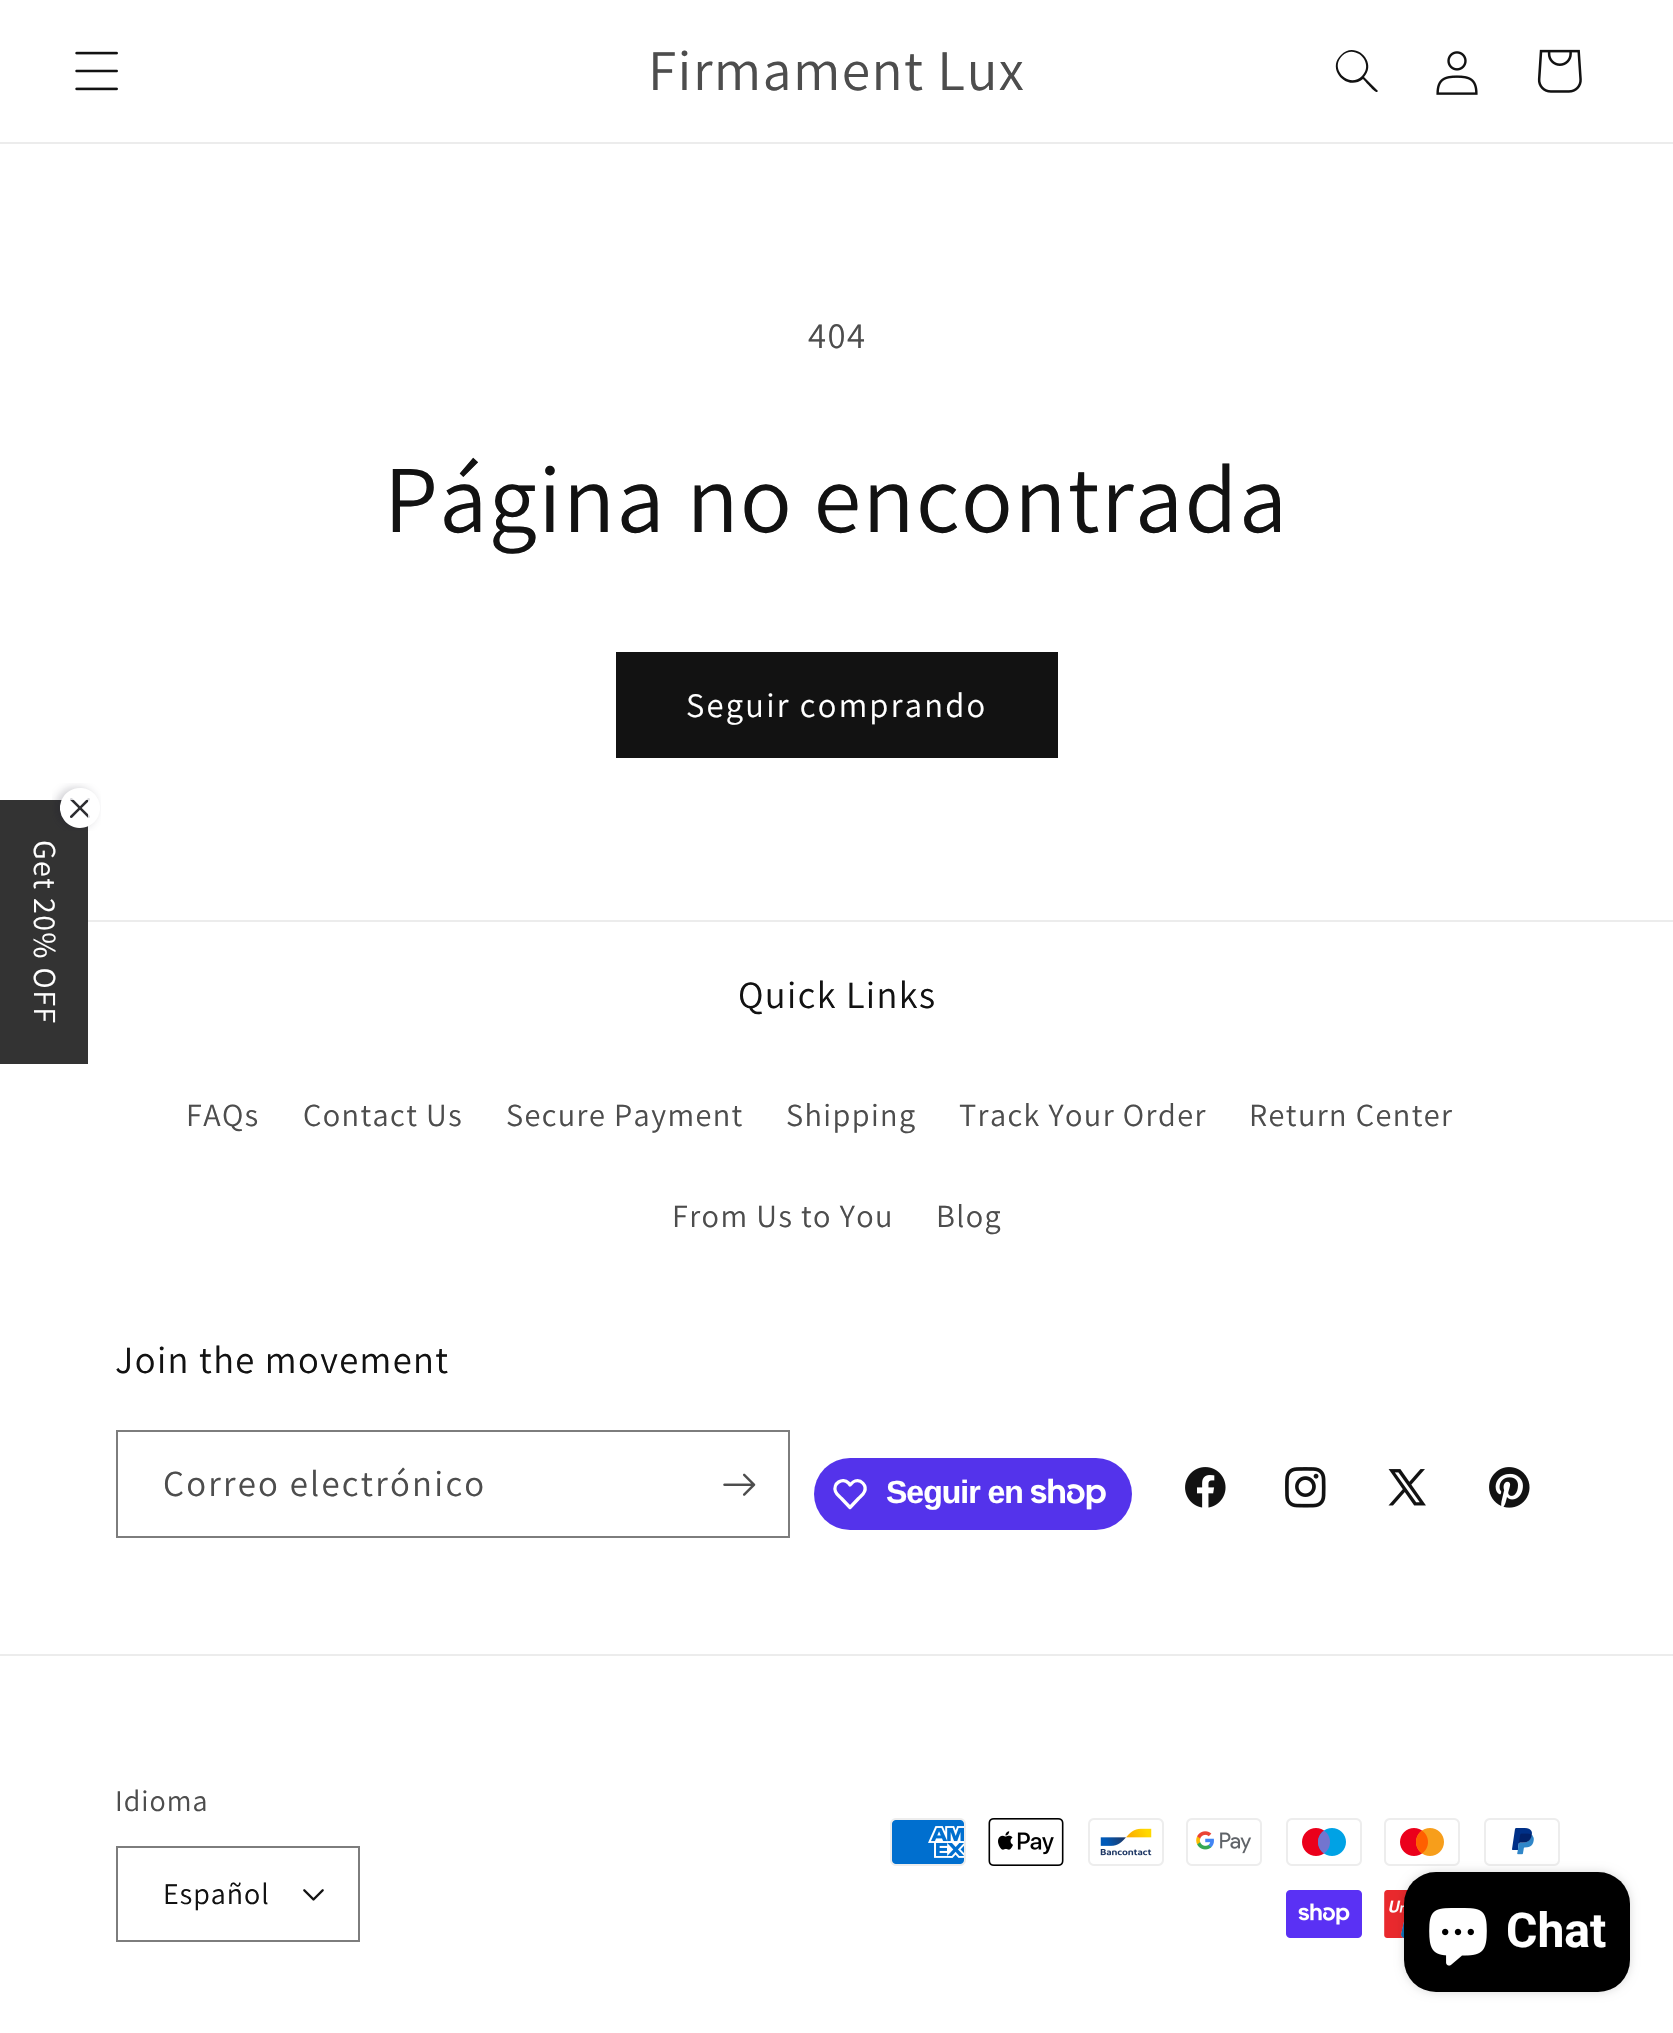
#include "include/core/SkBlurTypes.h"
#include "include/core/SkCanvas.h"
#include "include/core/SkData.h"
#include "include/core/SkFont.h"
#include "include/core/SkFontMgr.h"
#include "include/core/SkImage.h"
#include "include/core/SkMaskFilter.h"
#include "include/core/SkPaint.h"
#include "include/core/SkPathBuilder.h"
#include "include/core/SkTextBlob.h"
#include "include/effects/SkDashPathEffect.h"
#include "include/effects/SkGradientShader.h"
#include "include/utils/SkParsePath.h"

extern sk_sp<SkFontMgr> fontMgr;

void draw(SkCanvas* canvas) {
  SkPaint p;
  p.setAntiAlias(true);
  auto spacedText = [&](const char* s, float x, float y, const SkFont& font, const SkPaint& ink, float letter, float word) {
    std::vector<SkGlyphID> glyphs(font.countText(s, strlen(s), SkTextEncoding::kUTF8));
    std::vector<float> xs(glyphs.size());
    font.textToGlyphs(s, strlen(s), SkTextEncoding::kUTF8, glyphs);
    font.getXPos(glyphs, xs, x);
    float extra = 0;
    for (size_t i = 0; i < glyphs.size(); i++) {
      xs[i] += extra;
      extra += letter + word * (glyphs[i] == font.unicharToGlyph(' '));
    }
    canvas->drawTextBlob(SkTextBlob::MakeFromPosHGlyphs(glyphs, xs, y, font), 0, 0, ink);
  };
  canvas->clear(SK_ColorWHITE);
  p.setColor(SkColorSetRGB(236, 236, 236));
  canvas->drawRect(SkRect::MakeLTRB(0, 142, 1673, 144), p);
  canvas->drawImageRect(SkImages::DeferredFromEncodedData(SkData::MakeFromFileName("images/1.png")), SkRect::MakeLTRB(75, 51, 118, 91), SkSamplingOptions());
  p.setColor(SkColorSetRGB(18, 18, 18));
  canvas->drawPath(SkPathBuilder(SkPathFillType::kEvenOdd).moveTo(1362, 76).cubicTo(1349, 89, 1329, 69, 1342, 56).cubicTo(1355, 43, 1375, 63, 1362, 76).close().moveTo(1363, 79).cubicTo(1347, 92, 1326, 69, 1341, 55).cubicTo(1355, 40, 1378, 62, 1364, 77).lineTo(1378, 91).lineTo(1377, 92).cubicTo(1375, 93, 1365, 81, 1363, 79).close().detach(), p);
  canvas->drawImageRect(SkImages::DeferredFromEncodedData(SkData::MakeFromFileName("images/2.png")), SkRect::MakeLTRB(1436, 51, 1478, 95), SkSamplingOptions());
  canvas->drawImageRect(SkImages::DeferredFromEncodedData(SkData::MakeFromFileName("images/3.png")), SkRect::MakeLTRB(1537, 49, 1582, 93), SkSamplingOptions());
  canvas->drawRect(SkRect::MakeLTRB(616, 652, 1058, 758), p);
  p.setColor(SkColorSetRGB(51, 51, 51));
  canvas->drawRect(SkRect::MakeLTRB(0, 800, 88, 1064), p);
  canvas->drawImageRect(SkImages::DeferredFromEncodedData(SkData::MakeFromFileName("images/4.png")), SkRect::MakeLTRB(52, 783, 101, 831), SkSamplingOptions());
  p.setColor(SkColorSetRGB(236, 236, 236));
  canvas->drawRect(SkRect::MakeLTRB(88, 920, 1673, 922), p);
  p.setStyle(SkPaint::kStroke_Style);
  p.setStrokeWidth(2);
  p.setColor(SkColorSetRGB(125, 125, 125));
  canvas->drawRect(SkRect::MakeLTRB(117, 1431, 789, 1537), p);
  canvas->drawImageRect(SkImages::DeferredFromEncodedData(SkData::MakeFromFileName("images/5.png")), SkRect::MakeLTRB(723, 1473, 756, 1496), SkSamplingOptions());
  p.setStyle(SkPaint::kFill_Style);
  p.setColor(SkColorSetRGB(84, 51, 235));
  canvas->drawRoundRect(SkRect::MakeLTRB(814, 1458, 1132, 1530), 36, 36, p);
  p.setStyle(SkPaint::kStroke_Style);
  p.setStrokeWidth(3.3f);
  p.setStrokeJoin(SkPaint::kRound_Join);
  p.setColor(SK_ColorWHITE);
  canvas->drawPath(SkPathBuilder().moveTo(848.5f, 1483).lineTo(850, 1485).cubicTo(851.5f, 1483.5f, 853, 1481.5f, 855, 1481).cubicTo(861, 1479, 867, 1485.5f, 864.5f, 1491.5f).cubicTo(863.5f, 1494.5f, 860.5f, 1496.5f, 858.5f, 1498.5f).lineTo(850, 1507.5f).lineTo(841.5f, 1498.5f).cubicTo(839.5f, 1496.5f, 836.5f, 1494.5f, 835.5f, 1491.5f).cubicTo(832.5f, 1483.5f, 842.5f, 1477, 848.5f, 1483).close().detach(), p);
  canvas->drawImageRect(SkImages::DeferredFromEncodedData(SkData::MakeFromFileName("images/6.png")), SkRect::MakeLTRB(1031, 1478, 1106, 1510), SkSamplingOptions());
  canvas->drawImageRect(SkImages::DeferredFromEncodedData(SkData::MakeFromFileName("images/7.png")), SkRect::MakeLTRB(1185, 1467, 1226, 1508), SkSamplingOptions());
  canvas->drawImageRect(SkImages::DeferredFromEncodedData(SkData::MakeFromFileName("images/8.png")), SkRect::MakeLTRB(1285, 1467, 1326, 1508), SkSamplingOptions());
  canvas->drawImageRect(SkImages::DeferredFromEncodedData(SkData::MakeFromFileName("images/9.png")), SkRect::MakeLTRB(1388, 1469, 1426, 1506), SkSamplingOptions());
  canvas->drawImageRect(SkImages::DeferredFromEncodedData(SkData::MakeFromFileName("images/10.png")), SkRect::MakeLTRB(1489, 1467, 1530, 1508), SkSamplingOptions());
  p.setStyle(SkPaint::kFill_Style);
  p.setColor(SkColorSetRGB(236, 236, 236));
  canvas->drawRect(SkRect::MakeLTRB(0, 1654, 1673, 1656), p);
  canvas->drawImageRect(SkImages::DeferredFromEncodedData(SkData::MakeFromFileName("images/11.png")), SkRect::MakeLTRB(303, 1889, 324, 1901), SkSamplingOptions());
  p.setStyle(SkPaint::kStroke_Style);
  p.setStrokeWidth(2);
  p.setStrokeJoin(SkPaint::kMiter_Join);
  p.setColor(SkColorSetRGB(125, 125, 125));
  canvas->drawRect(SkRect::MakeLTRB(117, 1847, 359, 1941), p);
  canvas->drawImageRect(SkImages::DeferredFromEncodedData(SkData::MakeFromFileName("images/12.png")), SkRect::MakeLTRB(890, 1818, 966, 1866), SkSamplingOptions());
  canvas->drawImageRect(SkImages::DeferredFromEncodedData(SkData::MakeFromFileName("images/13.png")), SkRect::MakeLTRB(988, 1818, 1064, 1866), SkSamplingOptions());
  canvas->drawImageRect(SkImages::DeferredFromEncodedData(SkData::MakeFromFileName("images/14.png")), SkRect::MakeLTRB(1088, 1818, 1164, 1866), SkSamplingOptions());
  canvas->drawImageRect(SkImages::DeferredFromEncodedData(SkData::MakeFromFileName("images/15.png")), SkRect::MakeLTRB(1186, 1818, 1262, 1866), SkSamplingOptions());
  canvas->drawImageRect(SkImages::DeferredFromEncodedData(SkData::MakeFromFileName("images/16.png")), SkRect::MakeLTRB(1286, 1818, 1362, 1866), SkSamplingOptions());
  canvas->drawImageRect(SkImages::DeferredFromEncodedData(SkData::MakeFromFileName("images/17.png")), SkRect::MakeLTRB(1384, 1818, 1460, 1866), SkSamplingOptions());
  canvas->drawImageRect(SkImages::DeferredFromEncodedData(SkData::MakeFromFileName("images/18.png")), SkRect::MakeLTRB(1484, 1818, 1560, 1866), SkSamplingOptions());
  canvas->drawImageRect(SkImages::DeferredFromEncodedData(SkData::MakeFromFileName("images/19.png")), SkRect::MakeLTRB(1286, 1890, 1362, 1938), SkSamplingOptions());
  canvas->drawImageRect(SkImages::DeferredFromEncodedData(SkData::MakeFromFileName("images/20.png")), SkRect::MakeLTRB(1384, 1890, 1408, 1938), SkSamplingOptions());
  p.setStyle(SkPaint::kFill_Style);
  p.setColor(SkColorSetARGB(38, 0, 0, 0));
  p.setMaskFilter(SkMaskFilter::MakeBlur(kNormal_SkBlurStyle, 5));
  canvas->drawRoundRect(SkRect::MakeLTRB(1404, 1872, 1630, 1992), 32, 32, p);
  p.setMaskFilter(nullptr);
  p.setColor(SK_ColorBLACK);
  canvas->drawRoundRect(SkRect::MakeLTRB(1404, 1872, 1630, 1992), 32, 32, p);
  canvas->drawImageRect(SkImages::DeferredFromEncodedData(SkData::MakeFromFileName("images/21.png")), SkRect::MakeLTRB(1429, 1908, 1487, 1966), SkSamplingOptions());
  SkFont font1(fontMgr->matchFamilyStyle("Assistant", SkFontStyle::Normal()), 57.5f);
  font1.setSubpixel(true);
  p.setColor(SkColorSetRGB(77, 77, 77));
  spacedText("Firmament Lux", 648, 90, font1, p, 1.4f, 0);
  SkFont font2(fontMgr->matchFamilyStyle("Assistant", SkFontStyle::Normal()), 36.75f);
  font2.setSubpixel(true);
  spacedText("404", 808, 348, font2, p, 1.4f, 0);
  SkFont font3(fontMgr->matchFamilyStyle("Assistant", SkFontStyle::Normal()), 96);
  font3.setSubpixel(true);
  p.setColor(SkColorSetRGB(18, 18, 18));
  spacedText("Página no encontrada", 384, 532, font3, p, 1.4f, 0);
  SkFont font4(fontMgr->matchFamilyStyle("Assistant", SkFontStyle::Normal()), 34.5f);
  font4.setSubpixel(true);
  p.setColor(SK_ColorWHITE);
  spacedText("Seguir comprando", 686, 717, font4, p, 2.25f, 0);
  SkFont font5(fontMgr->matchFamilyStyle("Assistant", SkFontStyle::Normal()), 32);
  font5.setSubpixel(true);
  canvas->save();
  canvas->rotate(90, 34, 840);
  spacedText("Get 20% OFF", 34, 840, font5, p, 1.4f, 0);
  canvas->restore();
  SkFont font6(fontMgr->matchFamilyStyle("Assistant", SkFontStyle::Normal()), 38.5f);
  font6.setSubpixel(true);
  p.setColor(SkColorSetRGB(18, 18, 18));
  spacedText("Quick Links", 738, 1008, font6, p, 1.4f, 0);
  SkFont font7(fontMgr->matchFamilyStyle("Assistant", SkFontStyle::Normal()), 32.25f);
  font7.setSubpixel(true);
  p.setColor(SkColorSetRGB(77, 77, 77));
  spacedText("FAQs", 186, 1126, font7, p, 1.4f, 0);
  spacedText("Contact Us", 303, 1126, font7, p, 1.4f, 0);
  spacedText("Secure Payment", 506, 1126, font7, p, 1.4f, 0);
  spacedText("Shipping", 786, 1126, font7, p, 1.4f, 0);
  spacedText("Track Your Order", 959, 1126, font7, p, 1.4f, 0);
  spacedText("Return Center", 1249, 1126, font7, p, 1.4f, 0);
  spacedText("From Us to You", 672, 1227, font7, p, 1.4f, 0);
  spacedText("Blog", 936, 1227, font7, p, 1.4f, 0);
  p.setColor(SkColorSetRGB(18, 18, 18));
  spacedText("Join the movement", 115, 1373, font6, p, 1.4f, 0);
  p.setColor(SkColorSetRGB(77, 77, 77));
  spacedText("Correo electrónico", 163, 1496, font2, p, 2.25f, 0);
  SkFont font8(fontMgr->matchFamilyStyle("Liberation Sans", SkFontStyle::Bold()), 32);
  font8.setSubpixel(true);
  p.setColor(SK_ColorWHITE);
  spacedText("Seguir en", 886, 1503, font8, p, -1, 0);
  SkFont font9(fontMgr->matchFamilyStyle("Assistant", SkFontStyle::Normal()), 30);
  font9.setSubpixel(true);
  p.setColor(SkColorSetRGB(77, 77, 77));
  spacedText("Idioma", 115, 1811, font9, p, 1, 0);
  p.setColor(SkColorSetRGB(18, 18, 18));
  spacedText("Español", 163, 1904, font9, p, 1, 0);
  SkFont font10(fontMgr->matchFamilyStyle("Roboto", SkFontStyle::Bold()), 48);
  font10.setSubpixel(true);
  p.setColor(SK_ColorWHITE);
  canvas->drawString("Chat", 1506, 1947, font10, p);
}
